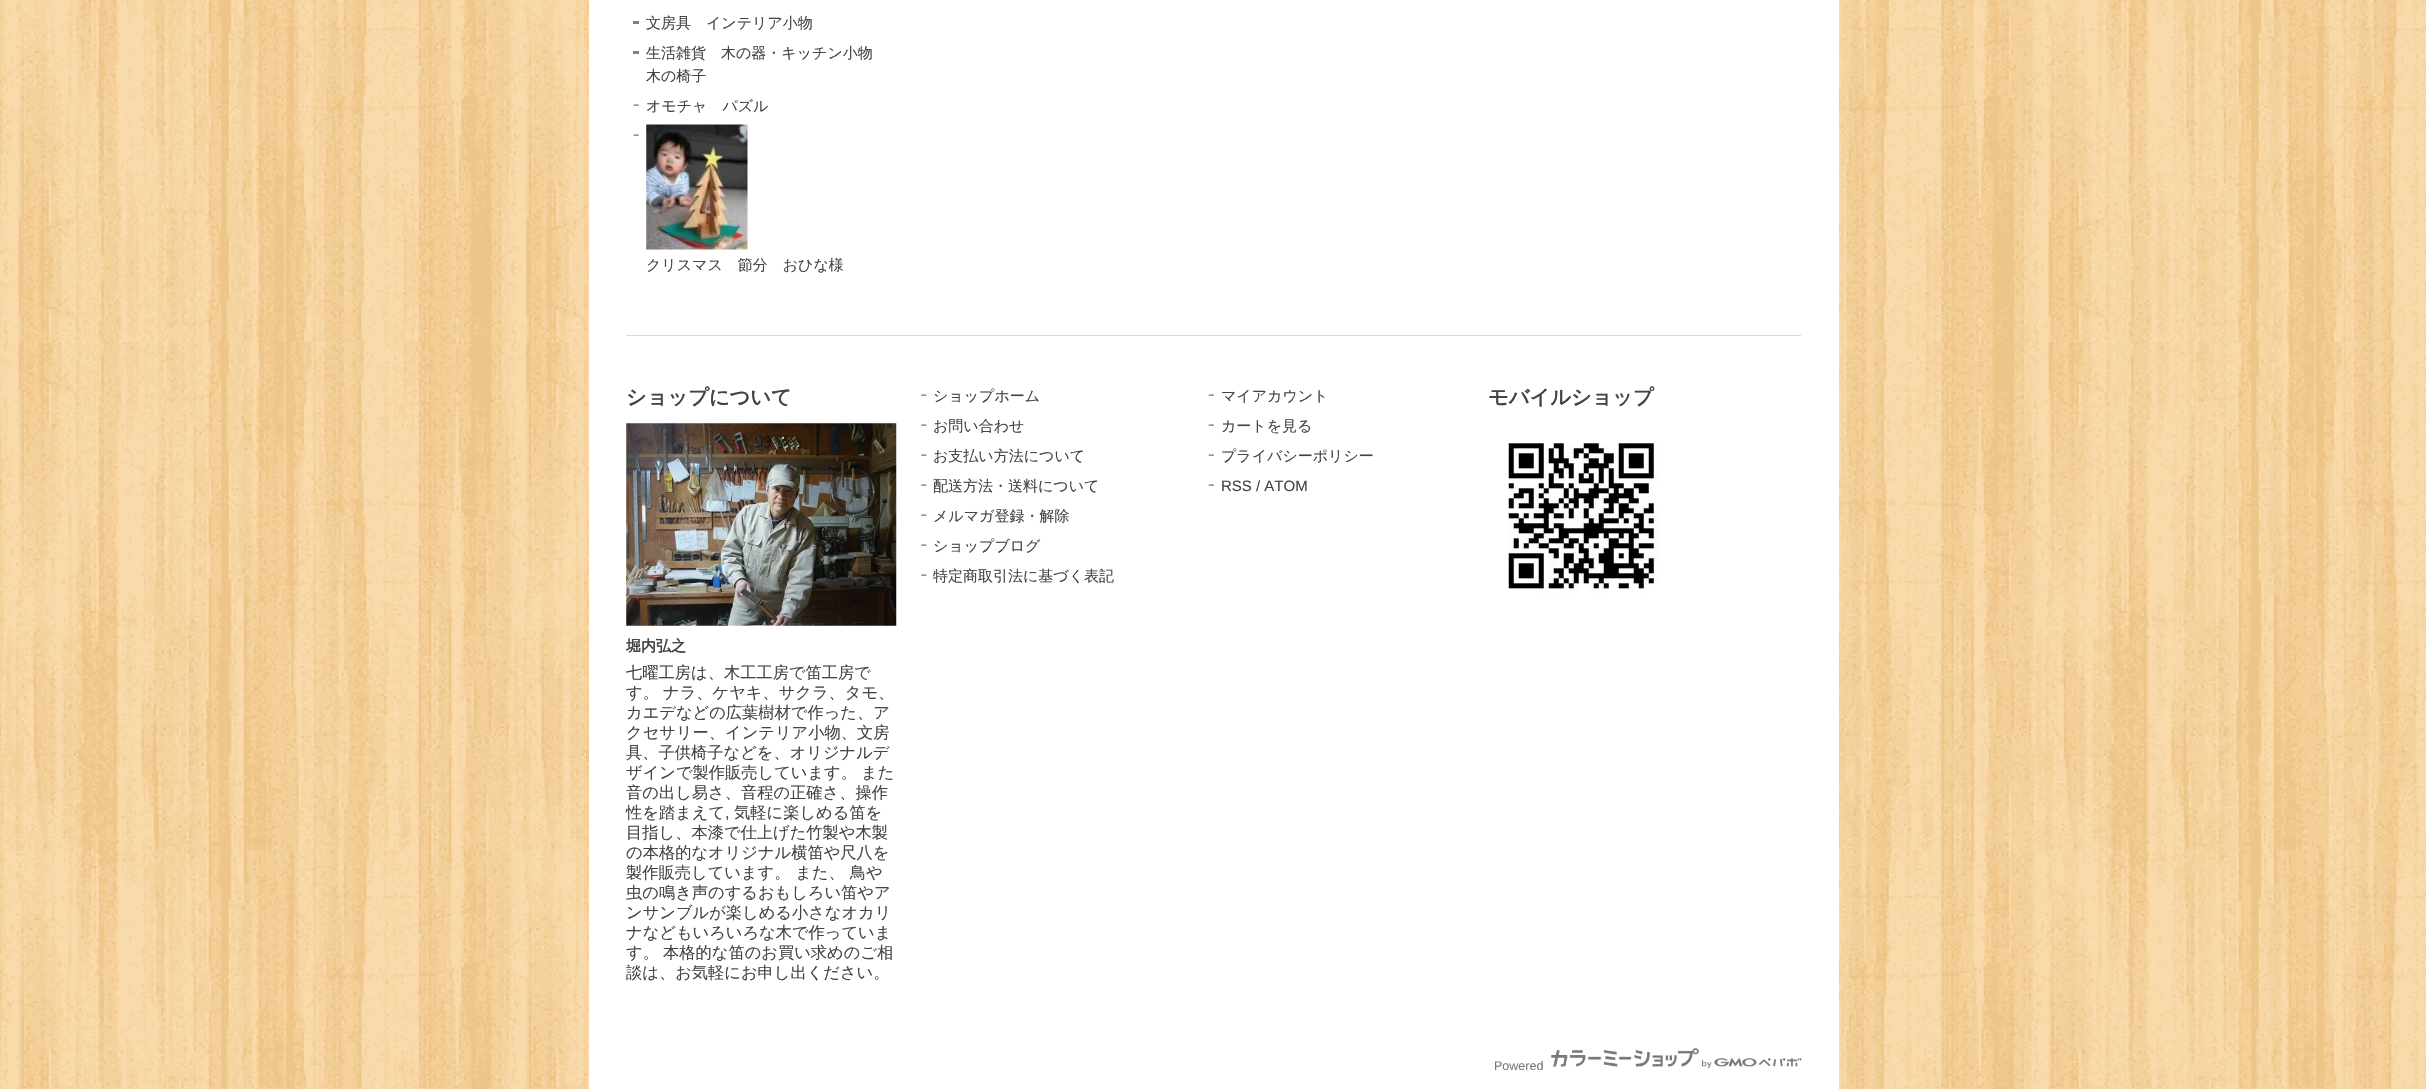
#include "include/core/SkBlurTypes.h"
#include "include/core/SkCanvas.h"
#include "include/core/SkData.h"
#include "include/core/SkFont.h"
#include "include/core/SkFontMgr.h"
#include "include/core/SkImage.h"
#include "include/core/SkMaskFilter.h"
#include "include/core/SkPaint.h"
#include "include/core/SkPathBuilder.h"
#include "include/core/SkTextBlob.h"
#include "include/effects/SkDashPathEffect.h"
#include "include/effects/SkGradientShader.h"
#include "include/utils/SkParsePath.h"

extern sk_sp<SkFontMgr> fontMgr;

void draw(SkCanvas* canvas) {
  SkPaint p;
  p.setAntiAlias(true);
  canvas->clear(SK_ColorWHITE);
  canvas->drawImageRect(SkImages::DeferredFromEncodedData(SkData::MakeFromFileName("images/1.png")), SkRect::MakeLTRB(0, 0, 2426, 1089), SkSamplingOptions());
  p.setColor(SK_ColorWHITE);
  canvas->drawRect(SkRect::MakeLTRB(589, 0, 1839, 1089), p);
  p.setColor(SkColorSetRGB(128, 128, 128));
  canvas->drawRect(SkRect::MakeLTRB(633, 21, 639, 24), p);
  canvas->drawRect(SkRect::MakeLTRB(633, 51, 639, 54), p);
  canvas->drawImageRect(SkImages::DeferredFromEncodedData(SkData::MakeFromFileName("images/2.png")), SkRect::MakeLTRB(633, 104, 639, 106), SkSamplingOptions());
  canvas->drawImageRect(SkImages::DeferredFromEncodedData(SkData::MakeFromFileName("images/2.png")), SkRect::MakeLTRB(633, 134, 639, 136), SkSamplingOptions());
  canvas->drawImageRect(SkImages::DeferredFromEncodedData(SkData::MakeFromFileName("images/3.png")), SkRect::MakeLTRB(646, 124, 748, 250), SkSamplingOptions());
  p.setColor(SkColorSetRGB(216, 216, 216));
  canvas->drawRect(SkRect::MakeLTRB(626, 335, 1801, 336), p);
  canvas->drawImageRect(SkImages::DeferredFromEncodedData(SkData::MakeFromFileName("images/4.png")), SkRect::MakeLTRB(626, 423, 897, 626), SkSamplingOptions());
  canvas->drawImageRect(SkImages::DeferredFromEncodedData(SkData::MakeFromFileName("images/5.png")), SkRect::MakeLTRB(921, 394, 927, 396), SkSamplingOptions());
  canvas->drawImageRect(SkImages::DeferredFromEncodedData(SkData::MakeFromFileName("images/5.png")), SkRect::MakeLTRB(921, 424, 927, 426), SkSamplingOptions());
  canvas->drawImageRect(SkImages::DeferredFromEncodedData(SkData::MakeFromFileName("images/5.png")), SkRect::MakeLTRB(921, 454, 927, 456), SkSamplingOptions());
  canvas->drawImageRect(SkImages::DeferredFromEncodedData(SkData::MakeFromFileName("images/5.png")), SkRect::MakeLTRB(921, 484, 927, 486), SkSamplingOptions());
  canvas->drawImageRect(SkImages::DeferredFromEncodedData(SkData::MakeFromFileName("images/5.png")), SkRect::MakeLTRB(921, 514, 927, 516), SkSamplingOptions());
  canvas->drawImageRect(SkImages::DeferredFromEncodedData(SkData::MakeFromFileName("images/5.png")), SkRect::MakeLTRB(921, 544, 927, 546), SkSamplingOptions());
  canvas->drawImageRect(SkImages::DeferredFromEncodedData(SkData::MakeFromFileName("images/5.png")), SkRect::MakeLTRB(921, 574, 927, 576), SkSamplingOptions());
  canvas->drawImageRect(SkImages::DeferredFromEncodedData(SkData::MakeFromFileName("images/2.png")), SkRect::MakeLTRB(1208, 394, 1214, 396), SkSamplingOptions());
  canvas->drawImageRect(SkImages::DeferredFromEncodedData(SkData::MakeFromFileName("images/2.png")), SkRect::MakeLTRB(1208, 424, 1214, 426), SkSamplingOptions());
  canvas->drawImageRect(SkImages::DeferredFromEncodedData(SkData::MakeFromFileName("images/2.png")), SkRect::MakeLTRB(1208, 454, 1214, 456), SkSamplingOptions());
  canvas->drawImageRect(SkImages::DeferredFromEncodedData(SkData::MakeFromFileName("images/2.png")), SkRect::MakeLTRB(1208, 484, 1214, 486), SkSamplingOptions());
  canvas->drawImageRect(SkImages::DeferredFromEncodedData(SkData::MakeFromFileName("images/6.png")), SkRect::MakeLTRB(1508, 443, 1659, 593), SkSamplingOptions());
  canvas->drawImageRect(SkImages::DeferredFromEncodedData(SkData::MakeFromFileName("images/7.png")), SkRect::MakeLTRB(1551, 1048, 1802, 1069), SkSamplingOptions());
  SkFont font1(fontMgr->matchFamilyStyle("WenQuanYi Zen Hei", SkFontStyle(500, SkFontStyle::kNormal_Width, SkFontStyle::kUpright_Slant)), 15);
  font1.setSubpixel(true);
  p.setColor(SkColorSetRGB(68, 68, 68));
  canvas->drawString("文房具　インテリア小物", 646, 28, font1, p);
  canvas->drawString("生活雑貨　木の器・キッチン小物", 646, 58, font1, p);
  canvas->drawString("木の椅子", 646, 81, font1, p);
  canvas->drawString("オモチャ　パズル", 646, 111, font1, p);
  canvas->drawString("クリスマス　節分　おひな様", 646, 270, font1, p);
  SkFont font2(fontMgr->matchFamilyStyle("WenQuanYi Zen Hei", SkFontStyle::Bold()), 20.25f);
  font2.setSubpixel(true);
  canvas->drawString("ショップについて", 626, 404, font2, p);
  SkFont font3(fontMgr->matchFamilyStyle("WenQuanYi Zen Hei", SkFontStyle::Bold()), 15);
  font3.setSubpixel(true);
  canvas->drawString("堀内弘之", 626, 651, font3, p);
  SkFont font4(fontMgr->matchFamilyStyle("WenQuanYi Zen Hei", SkFontStyle(500, SkFontStyle::kNormal_Width, SkFontStyle::kUpright_Slant)), 16.25f);
  font4.setSubpixel(true);
  canvas->drawString("七曜工房は、木工工房で笛工房で", 626, 678, font4, p);
  canvas->drawString("す。", 626, 698, font4, p);
  canvas->drawString("ナラ、ケヤキ、サクラ、タモ、", 663, 698, font4, p);
  canvas->drawString("カエデなどの広葉樹材で作った、ア", 626, 718, font4, p);
  canvas->drawString("クセサリー、インテリア小物、文房", 626, 738, font4, p);
  canvas->drawString("具、子供椅子などを、オリジナルデ", 626, 758, font4, p);
  canvas->drawString("ザインで製作販売しています。", 626, 778, font4, p);
  canvas->drawString("また", 861, 778, font4, p);
  canvas->drawString("音の出し易さ、音程の正確さ、操作", 626, 798, font4, p);
  canvas->drawString("性を踏まえて", 626, 818, font4, p);
  SkFont font5(fontMgr->matchFamilyStyle("Liberation Sans", SkFontStyle::Normal()), 16.25f);
  font5.setSubpixel(true);
  canvas->drawString(",", 725, 818, font5, p);
  canvas->drawString("気軽に楽しめる笛を", 734, 818, font4, p);
  canvas->drawString("目指し、本漆で仕上げた竹製や木製", 626, 838, font4, p);
  canvas->drawString("の本格的なオリジナル横笛や尺八を", 626, 858, font4, p);
  canvas->drawString("製作販売しています。 また、 鳥や", 626, 878, font4, p);
  canvas->drawString("虫の鳴き声のするおもしろい笛やア", 626, 898, font4, p);
  canvas->drawString("ンサンブルが楽しめる小さなオカリ", 626, 918, font4, p);
  canvas->drawString("ナなどもいろいろな木で作っていま", 626, 938, font4, p);
  canvas->drawString("す。", 626, 958, font4, p);
  canvas->drawString("本格的な笛のお買い求めのご相", 663, 958, font4, p);
  canvas->drawString("談は、お気軽にお申し出ください。", 626, 978, font4, p);
  canvas->drawString("ショップホーム", 933, 401, font1, p);
  canvas->drawString("お問い合わせ", 933, 431, font1, p);
  canvas->drawString("お支払い方法について", 933, 461, font1, p);
  canvas->drawString("配送方法・送料について", 933, 491, font1, p);
  canvas->drawString("メルマガ登録・解除", 933, 521, font1, p);
  canvas->drawString("ショップブログ", 933, 551, font1, p);
  canvas->drawString("特定商取引法に基づく表記", 933, 581, font1, p);
  canvas->drawString("マイアカウント", 1221, 401, font1, p);
  canvas->drawString("カートを見る", 1221, 431, font1, p);
  canvas->drawString("プライバシーポリシー", 1221, 461, font1, p);
  SkFont font6(fontMgr->matchFamilyStyle("Liberation Sans", SkFontStyle::Normal()), 15);
  font6.setSubpixel(true);
  canvas->drawString("RSS / ATOM", 1221, 491, font6, p);
  canvas->drawString("モバイルショップ", 1488, 404, font2, p);
  SkFont font7(fontMgr->matchFamilyStyle("Liberation Sans", SkFontStyle::Normal()), 12.5f);
  font7.setSubpixel(true);
  p.setColor(SkColorSetRGB(119, 119, 119));
  canvas->drawString("Powered", 1494, 1070, font7, p);
}
